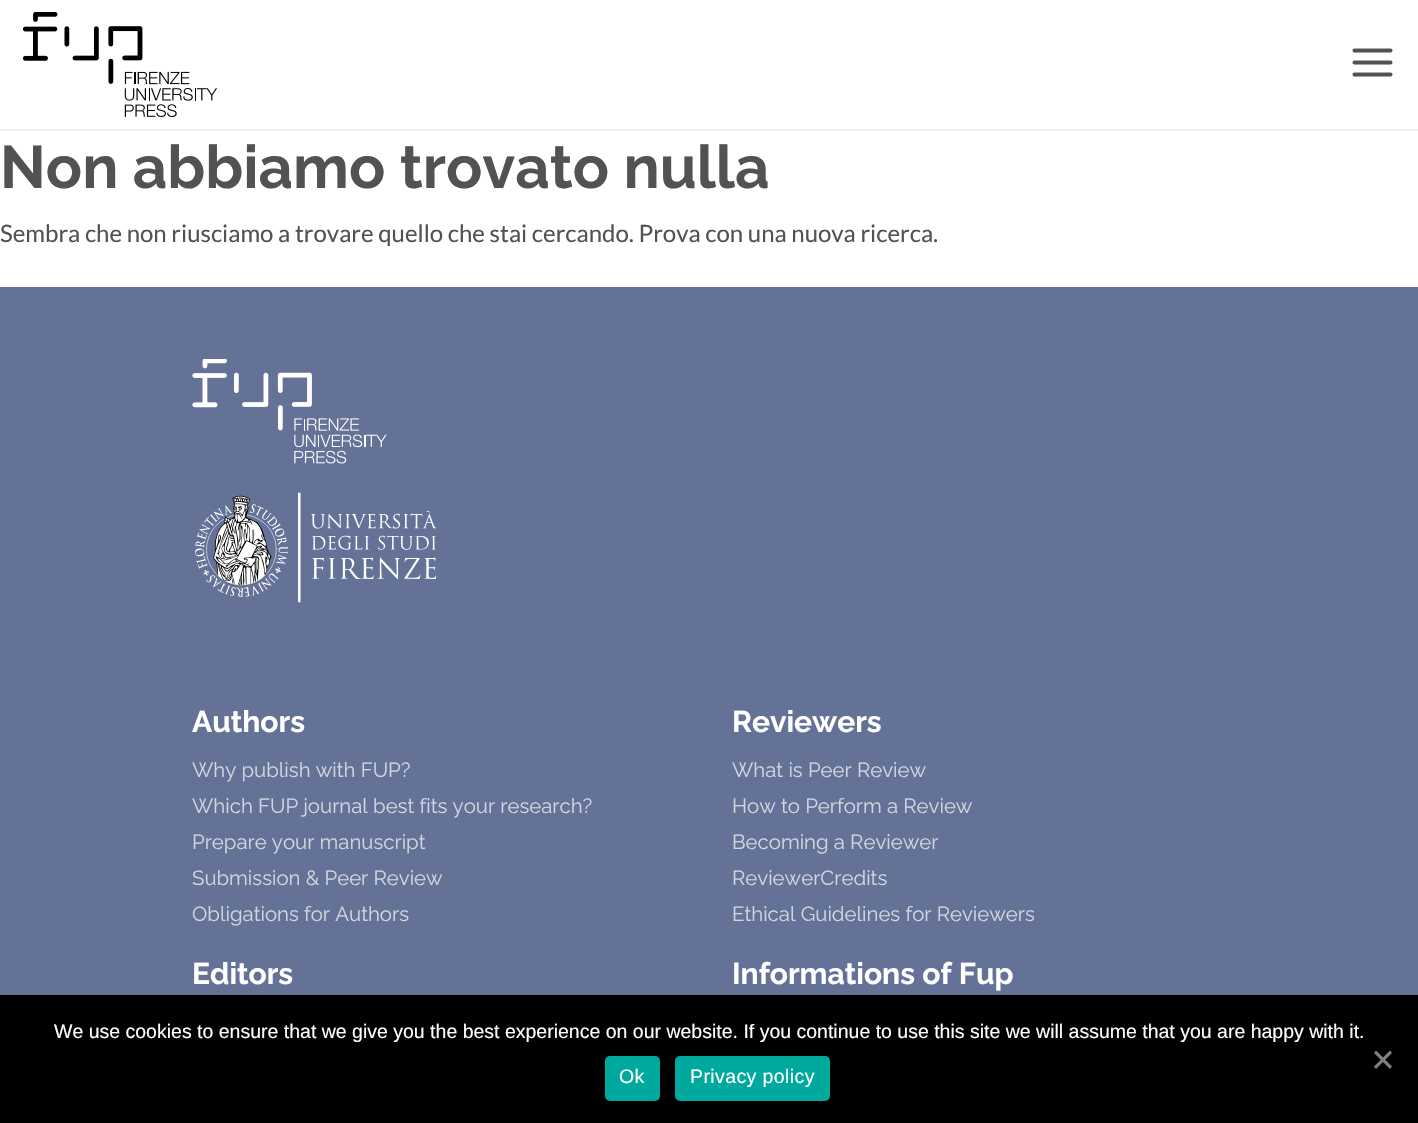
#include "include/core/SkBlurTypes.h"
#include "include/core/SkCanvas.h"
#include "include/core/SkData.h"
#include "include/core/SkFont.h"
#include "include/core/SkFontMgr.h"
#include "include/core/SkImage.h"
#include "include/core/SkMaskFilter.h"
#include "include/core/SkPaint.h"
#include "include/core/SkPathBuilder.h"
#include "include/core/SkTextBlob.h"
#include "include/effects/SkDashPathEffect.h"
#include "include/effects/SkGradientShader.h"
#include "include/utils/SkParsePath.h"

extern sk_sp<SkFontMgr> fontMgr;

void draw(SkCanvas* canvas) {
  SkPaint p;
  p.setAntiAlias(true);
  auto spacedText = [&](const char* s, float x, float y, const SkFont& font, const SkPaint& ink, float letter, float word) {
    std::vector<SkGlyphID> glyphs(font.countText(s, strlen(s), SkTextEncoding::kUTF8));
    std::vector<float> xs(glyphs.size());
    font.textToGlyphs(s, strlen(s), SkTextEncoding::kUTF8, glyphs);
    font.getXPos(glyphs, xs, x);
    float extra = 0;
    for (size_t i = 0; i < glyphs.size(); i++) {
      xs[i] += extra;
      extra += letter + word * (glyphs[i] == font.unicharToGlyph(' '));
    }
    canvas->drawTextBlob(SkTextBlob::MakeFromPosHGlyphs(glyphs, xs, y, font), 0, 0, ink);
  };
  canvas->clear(SK_ColorWHITE);
  p.setColor(SkColorSetRGB(237, 241, 244));
  canvas->drawRect(SkRect::MakeLTRB(0, 129, 1418, 131), p);
  canvas->drawImageRect(SkImages::DeferredFromEncodedData(SkData::MakeFromFileName("images/1.png")), SkRect::MakeLTRB(23, 12, 217, 117), SkSamplingOptions());
  canvas->drawImageRect(SkImages::DeferredFromEncodedData(SkData::MakeFromFileName("images/2.png")), SkRect::MakeLTRB(1352, 48, 1393, 77), SkSamplingOptions());
  p.setColor(SkColorSetRGB(100, 114, 151));
  canvas->drawRect(SkRect::MakeLTRB(0, 287, 1418, 995), p);
  canvas->drawImageRect(SkImages::DeferredFromEncodedData(SkData::MakeFromFileName("images/3.png")), SkRect::MakeLTRB(192, 359, 387, 464), SkSamplingOptions());
  canvas->drawImageRect(SkImages::DeferredFromEncodedData(SkData::MakeFromFileName("images/4.png")), SkRect::MakeLTRB(195, 492, 437, 603), SkSamplingOptions());
  p.setColor(SK_ColorBLACK);
  canvas->drawRect(SkRect::MakeLTRB(0, 995, 1418, 1123), p);
  p.setColor(SkColorSetRGB(128, 128, 128));
  canvas->drawPath(SkPathBuilder().moveTo(1390, 1050.5f).lineTo(1392, 1053).lineTo(1376, 1069).lineTo(1374, 1066.5f).close().detach(), p);
  canvas->drawPath(SkPathBuilder().moveTo(1374, 1053).lineTo(1376, 1050.5f).lineTo(1392, 1066.5f).lineTo(1390, 1069).close().detach(), p);
  p.setColor(SkColorSetRGB(0, 169, 157));
  canvas->drawRoundRect(SkRect::MakeLTRB(605, 1056, 660, 1101), 5, 5, p);
  canvas->drawRoundRect(SkRect::MakeLTRB(675, 1056, 830, 1101), 5, 5, p);
  SkFont font1(fontMgr->matchFamilyStyle("Raleway", SkFontStyle::Bold()), 60);
  font1.setSubpixel(true);
  p.setColor(SkColorSetRGB(82, 82, 82));
  canvas->drawString("Non abbiamo trovato nulla", 0, 188, font1, p);
  SkFont font2(fontMgr->matchFamilyStyle("Lato", SkFontStyle::Normal()), 24);
  font2.setSubpixel(true);
  canvas->drawString("Sembra che non riusciamo a trovare quello che stai cercando. Prova con una nuova ricerca.", 0, 242, font2, p);
  SkFont font3(fontMgr->matchFamilyStyle("Raleway", SkFontStyle::Bold()), 30);
  font3.setSubpixel(true);
  p.setColor(SK_ColorWHITE);
  canvas->drawString("Authors", 192, 732, font3, p);
  SkFont font4(fontMgr->matchFamilyStyle("Raleway", SkFontStyle::Normal()), 20.4f);
  font4.setSubpixel(true);
  p.setColor(SkColorSetRGB(209, 213, 224));
  canvas->drawString("Why publish with FUP?", 192, 777, font4, p);
  canvas->drawString("Which FUP journal best fits your research?", 192, 813, font4, p);
  canvas->drawString("Prepare your manuscript", 192, 849, font4, p);
  canvas->drawString("Submission & Peer Review", 192, 885, font4, p);
  canvas->drawString("Obligations for Authors", 192, 921, font4, p);
  p.setColor(SK_ColorWHITE);
  canvas->drawString("Reviewers", 732, 732, font3, p);
  p.setColor(SkColorSetRGB(209, 213, 224));
  canvas->drawString("What is Peer Review", 732, 777, font4, p);
  canvas->drawString("How to Perform a Review", 732, 813, font4, p);
  canvas->drawString("Becoming a Reviewer", 732, 849, font4, p);
  canvas->drawString("ReviewerCredits", 732, 885, font4, p);
  canvas->drawString("Ethical Guidelines for Reviewers", 732, 921, font4, p);
  p.setColor(SK_ColorWHITE);
  canvas->drawString("Editors", 192, 984, font3, p);
  canvas->drawString("Informations of Fup", 732, 984, font3, p);
  SkFont font5(fontMgr->matchFamilyStyle("Liberation Sans", SkFontStyle::Normal()), 19.5f);
  font5.setSubpixel(true);
  canvas->drawString("We use cookies to ensure that we give you the best experience on our website. If you continue to use this site we will assume that you are happy with it.", 54, 1038, font5, p);
  spacedText("Ok", 619, 1083, font5, p, 0.4f, 0);
  spacedText("Privacy policy", 690, 1083, font5, p, 0.4f, 0);
}
